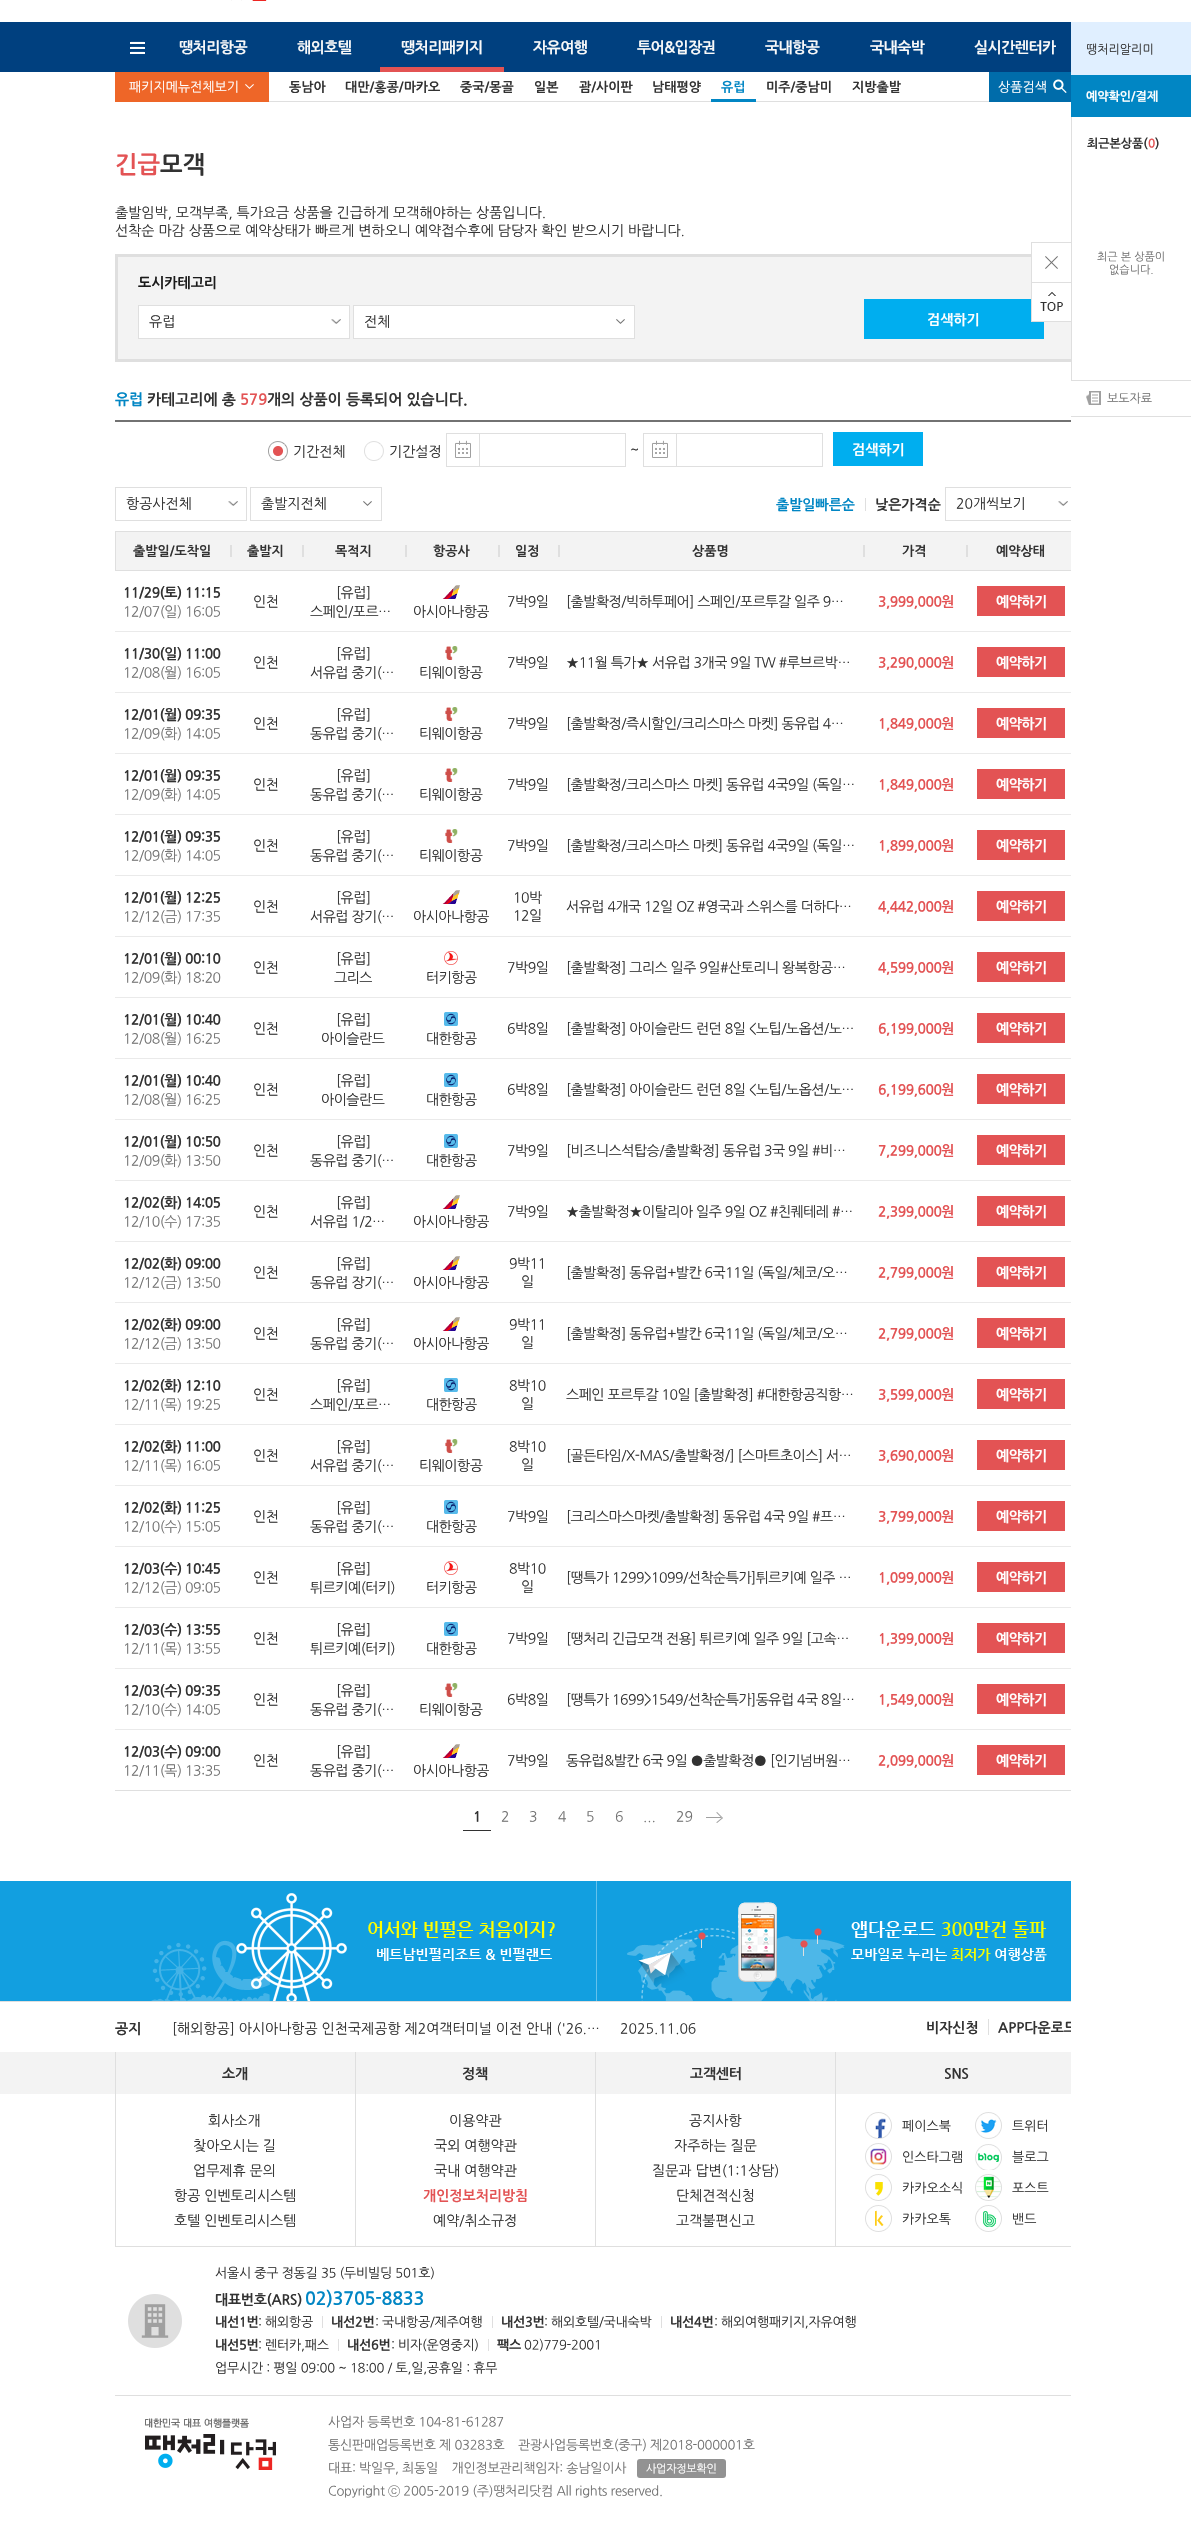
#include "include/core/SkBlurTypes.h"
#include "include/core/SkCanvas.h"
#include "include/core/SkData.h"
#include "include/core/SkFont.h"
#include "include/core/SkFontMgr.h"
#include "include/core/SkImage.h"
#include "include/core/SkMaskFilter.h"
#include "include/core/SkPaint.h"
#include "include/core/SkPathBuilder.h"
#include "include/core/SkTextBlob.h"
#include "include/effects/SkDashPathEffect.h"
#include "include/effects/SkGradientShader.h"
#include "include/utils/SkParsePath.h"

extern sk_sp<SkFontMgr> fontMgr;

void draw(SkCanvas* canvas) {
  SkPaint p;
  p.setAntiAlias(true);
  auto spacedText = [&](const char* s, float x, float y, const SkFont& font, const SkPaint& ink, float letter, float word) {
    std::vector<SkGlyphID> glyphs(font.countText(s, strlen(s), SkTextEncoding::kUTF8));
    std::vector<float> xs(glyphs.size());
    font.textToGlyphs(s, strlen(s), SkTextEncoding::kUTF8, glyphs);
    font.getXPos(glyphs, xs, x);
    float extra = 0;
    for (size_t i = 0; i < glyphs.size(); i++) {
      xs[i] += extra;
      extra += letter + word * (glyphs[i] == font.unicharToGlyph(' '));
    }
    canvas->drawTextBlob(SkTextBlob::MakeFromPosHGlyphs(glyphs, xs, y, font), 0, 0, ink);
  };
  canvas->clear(SK_ColorWHITE);
  canvas->drawImageRect(SkImages::DeferredFromEncodedData(SkData::MakeFromFileName("images/1.png")), SkRect::MakeLTRB(231, 0, 267, 1), SkSamplingOptions());
  p.setColor(SkColorSetRGB(0, 64, 127));
  canvas->drawRect(SkRect::MakeLTRB(0, 22, 1071, 72), p);
  canvas->drawImageRect(SkImages::DeferredFromEncodedData(SkData::MakeFromFileName("images/2.png")), SkRect::MakeLTRB(130, 41, 145, 54), SkSamplingOptions());
  p.setColor(SkColorSetRGB(227, 83, 83));
  canvas->drawRect(SkRect::MakeLTRB(380, 67, 504, 72), p);
  p.setColor(SkColorSetRGB(243, 243, 243));
  canvas->drawRect(SkRect::MakeLTRB(118, 257, 1071, 359), p);
  p.setStyle(SkPaint::kStroke_Style);
  p.setStrokeWidth(3);
  p.setColor(SkColorSetRGB(223, 223, 223));
  canvas->drawRect(SkRect::MakeLTRB(116.5f, 255.5f, 1075.5f, 360.5f), p);
  canvas->drawImageRect(SkImages::DeferredFromEncodedData(SkData::MakeFromFileName("images/3.png")), SkRect::MakeLTRB(1031, 242, 1071, 282), SkSamplingOptions());
  p.setStyle(SkPaint::kFill_Style);
  p.setColor(SkColorSetRGB(0, 174, 239));
  canvas->drawRect(SkRect::MakeLTRB(864, 299, 1044, 339), p);
  canvas->drawImageRect(SkImages::DeferredFromEncodedData(SkData::MakeFromFileName("images/4.png")), SkRect::MakeLTRB(1031, 282, 1071, 322), SkSamplingOptions());
  p.setColor(SkColorSetRGB(224, 239, 255));
  canvas->drawRect(SkRect::MakeLTRB(1071, 22, 1191, 75), p);
  p.setColor(SkColorSetRGB(1, 134, 196));
  canvas->drawRect(SkRect::MakeLTRB(1071, 75, 1191, 117), p);
  p.setColor(SK_ColorWHITE);
  canvas->drawRect(SkRect::MakeLTRB(1072, 254, 1077, 362), p);
  p.setColor(SkColorSetRGB(223, 223, 223));
  canvas->drawRect(SkRect::MakeLTRB(1071, 117, 1072, 380), p);
  canvas->drawRect(SkRect::MakeLTRB(1071, 380, 1191, 381), p);
  canvas->drawRect(SkRect::MakeLTRB(1071, 416, 1191, 417), p);
  canvas->drawImageRect(SkImages::DeferredFromEncodedData(SkData::MakeFromFileName("images/5.png")), SkRect::MakeLTRB(1086, 391, 1101, 405), SkSamplingOptions());
  canvas->drawRect(SkRect::MakeLTRB(269, 101, 989, 102), p);
  p.setColor(SkColorSetRGB(238, 102, 40));
  canvas->drawRect(SkRect::MakeLTRB(115, 72, 269, 102), p);
  canvas->drawImageRect(SkImages::DeferredFromEncodedData(SkData::MakeFromFileName("images/6.png")), SkRect::MakeLTRB(245, 84, 254, 89), SkSamplingOptions());
  p.setColor(SkColorSetRGB(1, 134, 196));
  canvas->drawRect(SkRect::MakeLTRB(711, 99, 756, 102), p);
  p.setColor(SkColorSetRGB(0, 108, 170));
  canvas->drawRect(SkRect::MakeLTRB(989, 72, 1071, 102), p);
  canvas->drawImageRect(SkImages::DeferredFromEncodedData(SkData::MakeFromFileName("images/7.png")), SkRect::MakeLTRB(1053, 79, 1067, 93), SkSamplingOptions());
  p.setColor(SK_ColorWHITE);
  canvas->drawRect(SkRect::MakeLTRB(138.5f, 305.5f, 349.5f, 338.5f), p);
  p.setStyle(SkPaint::kStroke_Style);
  p.setStrokeWidth(1);
  p.setColor(SkColorSetRGB(223, 223, 223));
  canvas->drawRect(SkRect::MakeLTRB(138.5f, 305.5f, 349.5f, 338.5f), p);
  canvas->drawImageRect(SkImages::DeferredFromEncodedData(SkData::MakeFromFileName("images/8.png")), SkRect::MakeLTRB(331, 319, 341, 324), SkSamplingOptions());
  p.setStyle(SkPaint::kFill_Style);
  p.setColor(SK_ColorWHITE);
  canvas->drawRect(SkRect::MakeLTRB(353.5f, 305.5f, 634.5f, 338.5f), p);
  p.setStyle(SkPaint::kStroke_Style);
  p.setColor(SkColorSetRGB(223, 223, 223));
  canvas->drawRect(SkRect::MakeLTRB(353.5f, 305.5f, 634.5f, 338.5f), p);
  canvas->drawImageRect(SkImages::DeferredFromEncodedData(SkData::MakeFromFileName("images/9.png")), SkRect::MakeLTRB(616, 319, 625, 324), SkSamplingOptions());
  p.setStyle(SkPaint::kFill_Style);
  p.setColor(SkColorSetRGB(114, 114, 114));
  canvas->drawRect(SkRect::MakeLTRB(115, 420, 1077, 422), p);
  canvas->drawImageRect(SkImages::DeferredFromEncodedData(SkData::MakeFromFileName("images/10.png")), SkRect::MakeLTRB(268, 441, 288, 461), SkSamplingOptions());
  p.setColor(SkColorSetRGB(227, 83, 84));
  canvas->drawCircle(277.5f, 451.5f, 4, p);
  canvas->drawImageRect(SkImages::DeferredFromEncodedData(SkData::MakeFromFileName("images/11.png")), SkRect::MakeLTRB(364, 441, 384, 461), SkSamplingOptions());
  p.setStyle(SkPaint::kStroke_Style);
  p.setColor(SkColorSetRGB(223, 223, 223));
  canvas->drawRect(SkRect::MakeLTRB(446.5f, 433.5f, 625.5f, 466.5f), p);
  canvas->drawImageRect(SkImages::DeferredFromEncodedData(SkData::MakeFromFileName("images/12.png")), SkRect::MakeLTRB(455, 440, 471, 458), SkSamplingOptions());
  p.setStyle(SkPaint::kFill_Style);
  canvas->drawRect(SkRect::MakeLTRB(479, 434, 480, 466), p);
  p.setStyle(SkPaint::kStroke_Style);
  canvas->drawRect(SkRect::MakeLTRB(643.5f, 433.5f, 822.5f, 466.5f), p);
  canvas->drawImageRect(SkImages::DeferredFromEncodedData(SkData::MakeFromFileName("images/12.png")), SkRect::MakeLTRB(652, 440, 668, 458), SkSamplingOptions());
  p.setStyle(SkPaint::kFill_Style);
  canvas->drawRect(SkRect::MakeLTRB(676, 434, 677, 466), p);
  p.setColor(SkColorSetRGB(0, 174, 239));
  canvas->drawRect(SkRect::MakeLTRB(833, 432, 923, 466), p);
  p.setStyle(SkPaint::kStroke_Style);
  p.setColor(SkColorSetRGB(223, 223, 223));
  canvas->drawRect(SkRect::MakeLTRB(115.5f, 487.5f, 246.5f, 520.5f), p);
  canvas->drawImageRect(SkImages::DeferredFromEncodedData(SkData::MakeFromFileName("images/13.png")), SkRect::MakeLTRB(228, 501, 238, 506), SkSamplingOptions());
  canvas->drawRect(SkRect::MakeLTRB(250.5f, 487.5f, 381.5f, 520.5f), p);
  canvas->drawImageRect(SkImages::DeferredFromEncodedData(SkData::MakeFromFileName("images/9.png")), SkRect::MakeLTRB(363, 501, 372, 506), SkSamplingOptions());
  p.setStyle(SkPaint::kFill_Style);
  canvas->drawRect(SkRect::MakeLTRB(865, 498, 866, 511), p);
  p.setStyle(SkPaint::kStroke_Style);
  canvas->drawRect(SkRect::MakeLTRB(945.5f, 487.5f, 1076.5f, 520.5f), p);
  canvas->drawImageRect(SkImages::DeferredFromEncodedData(SkData::MakeFromFileName("images/13.png")), SkRect::MakeLTRB(1058, 501, 1068, 506), SkSamplingOptions());
  p.setStyle(SkPaint::kFill_Style);
  canvas->drawRect(SkRect::MakeLTRB(115, 1790, 1077, 1791), p);
  p.setColor(SkColorSetRGB(243, 243, 243));
  canvas->drawRect(SkRect::MakeLTRB(116, 532, 1071, 570), p);
  p.setColor(SkColorSetRGB(223, 223, 223));
  canvas->drawRect(SkRect::MakeLTRB(115, 531, 1077, 532), p);
  canvas->drawRect(SkRect::MakeLTRB(115, 570, 1077, 571), p);
  canvas->drawRect(SkRect::MakeLTRB(115, 531, 116, 571), p);
  canvas->drawRect(SkRect::MakeLTRB(230, 545, 232, 557), p);
  canvas->drawRect(SkRect::MakeLTRB(302, 545, 304, 557), p);
  canvas->drawRect(SkRect::MakeLTRB(405, 545, 407, 557), p);
  canvas->drawRect(SkRect::MakeLTRB(498, 545, 500, 557), p);
  canvas->drawRect(SkRect::MakeLTRB(558, 545, 560, 557), p);
  canvas->drawRect(SkRect::MakeLTRB(863, 545, 865, 557), p);
  canvas->drawRect(SkRect::MakeLTRB(966, 545, 968, 557), p);
  p.setColor(SkColorSetRGB(227, 83, 84));
  canvas->drawRect(SkRect::MakeLTRB(977, 586, 1065, 616), p);
  canvas->drawImageRect(SkImages::DeferredFromEncodedData(SkData::MakeFromFileName("images/14.png")), SkRect::MakeLTRB(442, 585, 460, 599), SkSamplingOptions());
  p.setColor(SkColorSetRGB(234, 234, 234));
  canvas->drawRect(SkRect::MakeLTRB(115, 631, 1077, 632), p);
  p.setColor(SkColorSetRGB(227, 83, 84));
  canvas->drawRect(SkRect::MakeLTRB(977, 647, 1065, 677), p);
  canvas->drawImageRect(SkImages::DeferredFromEncodedData(SkData::MakeFromFileName("images/15.png")), SkRect::MakeLTRB(445, 646, 458, 660), SkSamplingOptions());
  p.setColor(SkColorSetRGB(234, 234, 234));
  canvas->drawRect(SkRect::MakeLTRB(115, 692, 1077, 693), p);
  p.setColor(SkColorSetRGB(227, 83, 84));
  canvas->drawRect(SkRect::MakeLTRB(977, 708, 1065, 738), p);
  canvas->drawImageRect(SkImages::DeferredFromEncodedData(SkData::MakeFromFileName("images/15.png")), SkRect::MakeLTRB(445, 707, 458, 721), SkSamplingOptions());
  p.setColor(SkColorSetRGB(234, 234, 234));
  canvas->drawRect(SkRect::MakeLTRB(115, 753, 1077, 754), p);
  p.setColor(SkColorSetRGB(227, 83, 84));
  canvas->drawRect(SkRect::MakeLTRB(977, 769, 1065, 799), p);
  canvas->drawImageRect(SkImages::DeferredFromEncodedData(SkData::MakeFromFileName("images/15.png")), SkRect::MakeLTRB(445, 768, 458, 782), SkSamplingOptions());
  p.setColor(SkColorSetRGB(234, 234, 234));
  canvas->drawRect(SkRect::MakeLTRB(115, 814, 1077, 815), p);
  p.setColor(SkColorSetRGB(227, 83, 84));
  canvas->drawRect(SkRect::MakeLTRB(977, 830, 1065, 860), p);
  canvas->drawImageRect(SkImages::DeferredFromEncodedData(SkData::MakeFromFileName("images/15.png")), SkRect::MakeLTRB(445, 829, 458, 843), SkSamplingOptions());
  p.setColor(SkColorSetRGB(234, 234, 234));
  canvas->drawRect(SkRect::MakeLTRB(115, 875, 1077, 876), p);
  p.setColor(SkColorSetRGB(227, 83, 84));
  canvas->drawRect(SkRect::MakeLTRB(977, 891, 1065, 921), p);
  canvas->drawImageRect(SkImages::DeferredFromEncodedData(SkData::MakeFromFileName("images/14.png")), SkRect::MakeLTRB(442, 890, 460, 904), SkSamplingOptions());
  p.setColor(SkColorSetRGB(234, 234, 234));
  canvas->drawRect(SkRect::MakeLTRB(115, 936, 1077, 937), p);
  p.setColor(SkColorSetRGB(227, 83, 84));
  canvas->drawRect(SkRect::MakeLTRB(977, 952, 1065, 982), p);
  canvas->drawImageRect(SkImages::DeferredFromEncodedData(SkData::MakeFromFileName("images/16.png")), SkRect::MakeLTRB(444, 951, 458, 965), SkSamplingOptions());
  p.setColor(SkColorSetRGB(234, 234, 234));
  canvas->drawRect(SkRect::MakeLTRB(115, 997, 1077, 998), p);
  p.setColor(SkColorSetRGB(227, 83, 84));
  canvas->drawRect(SkRect::MakeLTRB(977, 1013, 1065, 1043), p);
  canvas->drawImageRect(SkImages::DeferredFromEncodedData(SkData::MakeFromFileName("images/17.png")), SkRect::MakeLTRB(444, 1012, 458, 1026), SkSamplingOptions());
  p.setColor(SkColorSetRGB(234, 234, 234));
  canvas->drawRect(SkRect::MakeLTRB(115, 1058, 1077, 1059), p);
  p.setColor(SkColorSetRGB(227, 83, 84));
  canvas->drawRect(SkRect::MakeLTRB(977, 1074, 1065, 1104), p);
  canvas->drawImageRect(SkImages::DeferredFromEncodedData(SkData::MakeFromFileName("images/17.png")), SkRect::MakeLTRB(444, 1073, 458, 1087), SkSamplingOptions());
  p.setColor(SkColorSetRGB(234, 234, 234));
  canvas->drawRect(SkRect::MakeLTRB(115, 1119, 1077, 1120), p);
  p.setColor(SkColorSetRGB(227, 83, 84));
  canvas->drawRect(SkRect::MakeLTRB(977, 1135, 1065, 1165), p);
  canvas->drawImageRect(SkImages::DeferredFromEncodedData(SkData::MakeFromFileName("images/17.png")), SkRect::MakeLTRB(444, 1134, 458, 1148), SkSamplingOptions());
  p.setColor(SkColorSetRGB(234, 234, 234));
  canvas->drawRect(SkRect::MakeLTRB(115, 1180, 1077, 1181), p);
  p.setColor(SkColorSetRGB(227, 83, 84));
  canvas->drawRect(SkRect::MakeLTRB(977, 1196, 1065, 1226), p);
  canvas->drawImageRect(SkImages::DeferredFromEncodedData(SkData::MakeFromFileName("images/14.png")), SkRect::MakeLTRB(442, 1195, 460, 1209), SkSamplingOptions());
  p.setColor(SkColorSetRGB(234, 234, 234));
  canvas->drawRect(SkRect::MakeLTRB(115, 1241, 1077, 1242), p);
  p.setColor(SkColorSetRGB(227, 83, 84));
  canvas->drawRect(SkRect::MakeLTRB(977, 1257, 1065, 1287), p);
  canvas->drawImageRect(SkImages::DeferredFromEncodedData(SkData::MakeFromFileName("images/14.png")), SkRect::MakeLTRB(442, 1256, 460, 1270), SkSamplingOptions());
  p.setColor(SkColorSetRGB(234, 234, 234));
  canvas->drawRect(SkRect::MakeLTRB(115, 1302, 1077, 1303), p);
  p.setColor(SkColorSetRGB(227, 83, 84));
  canvas->drawRect(SkRect::MakeLTRB(977, 1318, 1065, 1348), p);
  canvas->drawImageRect(SkImages::DeferredFromEncodedData(SkData::MakeFromFileName("images/14.png")), SkRect::MakeLTRB(442, 1317, 460, 1331), SkSamplingOptions());
  p.setColor(SkColorSetRGB(234, 234, 234));
  canvas->drawRect(SkRect::MakeLTRB(115, 1363, 1077, 1364), p);
  p.setColor(SkColorSetRGB(227, 83, 84));
  canvas->drawRect(SkRect::MakeLTRB(977, 1379, 1065, 1409), p);
  canvas->drawImageRect(SkImages::DeferredFromEncodedData(SkData::MakeFromFileName("images/17.png")), SkRect::MakeLTRB(444, 1378, 458, 1392), SkSamplingOptions());
  p.setColor(SkColorSetRGB(234, 234, 234));
  canvas->drawRect(SkRect::MakeLTRB(115, 1424, 1077, 1425), p);
  p.setColor(SkColorSetRGB(227, 83, 84));
  canvas->drawRect(SkRect::MakeLTRB(977, 1440, 1065, 1470), p);
  canvas->drawImageRect(SkImages::DeferredFromEncodedData(SkData::MakeFromFileName("images/15.png")), SkRect::MakeLTRB(445, 1439, 458, 1453), SkSamplingOptions());
  p.setColor(SkColorSetRGB(234, 234, 234));
  canvas->drawRect(SkRect::MakeLTRB(115, 1485, 1077, 1486), p);
  p.setColor(SkColorSetRGB(227, 83, 84));
  canvas->drawRect(SkRect::MakeLTRB(977, 1501, 1065, 1531), p);
  canvas->drawImageRect(SkImages::DeferredFromEncodedData(SkData::MakeFromFileName("images/17.png")), SkRect::MakeLTRB(444, 1500, 458, 1514), SkSamplingOptions());
  p.setColor(SkColorSetRGB(234, 234, 234));
  canvas->drawRect(SkRect::MakeLTRB(115, 1546, 1077, 1547), p);
  p.setColor(SkColorSetRGB(227, 83, 84));
  canvas->drawRect(SkRect::MakeLTRB(977, 1562, 1065, 1592), p);
  canvas->drawImageRect(SkImages::DeferredFromEncodedData(SkData::MakeFromFileName("images/16.png")), SkRect::MakeLTRB(444, 1561, 458, 1575), SkSamplingOptions());
  p.setColor(SkColorSetRGB(234, 234, 234));
  canvas->drawRect(SkRect::MakeLTRB(115, 1607, 1077, 1608), p);
  p.setColor(SkColorSetRGB(227, 83, 84));
  canvas->drawRect(SkRect::MakeLTRB(977, 1623, 1065, 1653), p);
  canvas->drawImageRect(SkImages::DeferredFromEncodedData(SkData::MakeFromFileName("images/17.png")), SkRect::MakeLTRB(444, 1622, 458, 1636), SkSamplingOptions());
  p.setColor(SkColorSetRGB(234, 234, 234));
  canvas->drawRect(SkRect::MakeLTRB(115, 1668, 1077, 1669), p);
  p.setColor(SkColorSetRGB(227, 83, 84));
  canvas->drawRect(SkRect::MakeLTRB(977, 1684, 1065, 1714), p);
  canvas->drawImageRect(SkImages::DeferredFromEncodedData(SkData::MakeFromFileName("images/15.png")), SkRect::MakeLTRB(445, 1683, 458, 1697), SkSamplingOptions());
  p.setColor(SkColorSetRGB(234, 234, 234));
  canvas->drawRect(SkRect::MakeLTRB(115, 1729, 1077, 1730), p);
  p.setColor(SkColorSetRGB(227, 83, 84));
  canvas->drawRect(SkRect::MakeLTRB(977, 1745, 1065, 1775), p);
  canvas->drawImageRect(SkImages::DeferredFromEncodedData(SkData::MakeFromFileName("images/14.png")), SkRect::MakeLTRB(442, 1744, 460, 1758), SkSamplingOptions());
  p.setColor(SkColorSetRGB(50, 50, 50));
  canvas->drawRect(SkRect::MakeLTRB(463, 1830, 491, 1831), p);
  canvas->drawImageRect(SkImages::DeferredFromEncodedData(SkData::MakeFromFileName("images/18.png")), SkRect::MakeLTRB(706, 1812, 723, 1823), SkSamplingOptions());
  p.setColor(SkColorSetRGB(18, 159, 224));
  canvas->drawRect(SkRect::MakeLTRB(0, 1881, 1071, 2001), p);
  canvas->drawImageRect(SkImages::DeferredFromEncodedData(SkData::MakeFromFileName("images/19.png")), SkRect::MakeLTRB(151, 1893, 555, 2001), SkSamplingOptions());
  canvas->drawImageRect(SkImages::DeferredFromEncodedData(SkData::MakeFromFileName("images/20.png")), SkRect::MakeLTRB(596, 1881, 1047, 2001), SkSamplingOptions());
  p.setColor(SkColorSetRGB(223, 223, 223));
  canvas->drawRect(SkRect::MakeLTRB(0, 2001, 1071, 2002), p);
  canvas->drawRect(SkRect::MakeLTRB(988, 2019, 989, 2035), p);
  p.setColor(SkColorSetRGB(243, 243, 243));
  canvas->drawRect(SkRect::MakeLTRB(0, 2052, 1071, 2094), p);
  canvas->drawImageRect(SkImages::DeferredFromEncodedData(SkData::MakeFromFileName("images/21.png")), SkRect::MakeLTRB(115, 2052, 836, 2246), SkSamplingOptions());
  canvas->drawImageRect(SkImages::DeferredFromEncodedData(SkData::MakeFromFileName("images/22.png")), SkRect::MakeLTRB(865, 2112, 892, 2139), SkSamplingOptions());
  canvas->drawImageRect(SkImages::DeferredFromEncodedData(SkData::MakeFromFileName("images/23.png")), SkRect::MakeLTRB(975, 2112, 1002, 2139), SkSamplingOptions());
  canvas->drawImageRect(SkImages::DeferredFromEncodedData(SkData::MakeFromFileName("images/24.png")), SkRect::MakeLTRB(865, 2143, 892, 2170), SkSamplingOptions());
  canvas->drawImageRect(SkImages::DeferredFromEncodedData(SkData::MakeFromFileName("images/25.png")), SkRect::MakeLTRB(975, 2144, 1002, 2170), SkSamplingOptions());
  canvas->drawImageRect(SkImages::DeferredFromEncodedData(SkData::MakeFromFileName("images/26.png")), SkRect::MakeLTRB(865, 2174, 892, 2201), SkSamplingOptions());
  canvas->drawImageRect(SkImages::DeferredFromEncodedData(SkData::MakeFromFileName("images/27.png")), SkRect::MakeLTRB(975, 2174, 1002, 2201), SkSamplingOptions());
  canvas->drawImageRect(SkImages::DeferredFromEncodedData(SkData::MakeFromFileName("images/28.png")), SkRect::MakeLTRB(865, 2205, 892, 2232), SkSamplingOptions());
  canvas->drawImageRect(SkImages::DeferredFromEncodedData(SkData::MakeFromFileName("images/29.png")), SkRect::MakeLTRB(975, 2205, 1002, 2232), SkSamplingOptions());
  p.setColor(SkColorSetRGB(223, 223, 223));
  canvas->drawRect(SkRect::MakeLTRB(115, 2246, 1077, 2247), p);
  canvas->drawImageRect(SkImages::DeferredFromEncodedData(SkData::MakeFromFileName("images/30.png")), SkRect::MakeLTRB(128, 2294, 182, 2348), SkSamplingOptions());
  canvas->drawRect(SkRect::MakeLTRB(322, 2316, 323, 2328), p);
  canvas->drawRect(SkRect::MakeLTRB(492, 2316, 493, 2328), p);
  canvas->drawRect(SkRect::MakeLTRB(661, 2316, 662, 2328), p);
  canvas->drawRect(SkRect::MakeLTRB(338, 2339, 339, 2351), p);
  canvas->drawRect(SkRect::MakeLTRB(488, 2339, 489, 2351), p);
  canvas->drawRect(SkRect::MakeLTRB(115, 2395, 1077, 2396), p);
  canvas->drawImageRect(SkImages::DeferredFromEncodedData(SkData::MakeFromFileName("images/31.png")), SkRect::MakeLTRB(145, 2418, 276, 2470), SkSamplingOptions());
  p.setColor(SkColorSetRGB(146, 146, 146));
  canvas->drawRoundRect(SkRect::MakeLTRB(637, 2459, 726, 2478), 3, 3, p);
  SkFont font1(fontMgr->matchFamilyStyle("NanumGothic", SkFontStyle::Bold()), 15);
  font1.setSubpixel(true);
  p.setColor(SkColorSetRGB(249, 249, 249));
  spacedText("땡처리항공", 179, 52, font1, p, -0.5f, 0);
  spacedText("해외호텔", 297, 52, font1, p, -0.5f, 0);
  spacedText("땡처리패키지", 401, 52, font1, p, -0.5f, 0);
  spacedText("자유여행", 533, 52, font1, p, -0.5f, 0);
  spacedText("투어&입장권", 637, 52, font1, p, -0.5f, 0);
  spacedText("국내항공", 765, 52, font1, p, -0.5f, 0);
  spacedText("국내숙박", 870, 52, font1, p, -0.5f, 0);
  spacedText("실시간렌터카", 974, 52, font1, p, -0.5f, 0);
  SkFont font2(fontMgr->matchFamilyStyle("NanumGothic", SkFontStyle::Normal()), 12);
  font2.setSubpixel(true);
  p.setColor(SkColorSetRGB(50, 50, 50));
  canvas->drawString("땡처리알리미", 1086, 53, font2, p);
  SkFont font3(fontMgr->matchFamilyStyle("NanumGothic", SkFontStyle::Bold()), 12);
  font3.setSubpixel(true);
  p.setColor(SK_ColorWHITE);
  canvas->drawString("예약확인/결제", 1086, 100, font3, p);
  p.setColor(SkColorSetRGB(50, 50, 50));
  canvas->drawString("최근본상품(", 1087, 147, font3, p);
  p.setColor(SkColorSetRGB(227, 83, 84));
  canvas->drawString("0", 1148, 147, font3, p);
  p.setColor(SkColorSetRGB(50, 50, 50));
  canvas->drawString(")", 1155, 147, font3, p);
  SkFont font4(fontMgr->matchFamilyStyle("NanumGothic", SkFontStyle::Normal()), 11);
  font4.setSubpixel(true);
  p.setColor(SkColorSetRGB(114, 114, 114));
  canvas->drawString("최근 본 상품이", 1097, 260, font4, p);
  canvas->drawString("없습니다.", 1109, 273, font4, p);
  canvas->drawString("보도자료", 1107, 402, font2, p);
  SkFont font5(fontMgr->matchFamilyStyle("NanumGothic", SkFontStyle::Normal()), 13);
  font5.setSubpixel(true);
  p.setColor(SK_ColorWHITE);
  canvas->drawString("패키지메뉴전체보기", 129, 91, font5, p);
  SkFont font6(fontMgr->matchFamilyStyle("NanumGothic", SkFontStyle::Bold()), 13);
  font6.setSubpixel(true);
  p.setColor(SkColorSetRGB(50, 50, 50));
  canvas->drawString("동남아", 289, 91, font6, p);
  canvas->drawString("대만/홍콩/마카오", 345, 91, font6, p);
  canvas->drawString("중국/몽골", 460, 91, font6, p);
  canvas->drawString("일본", 534, 91, font6, p);
  canvas->drawString("괌/사이판", 579, 91, font6, p);
  canvas->drawString("남태평양", 652, 91, font6, p);
  p.setColor(SkColorSetRGB(1, 134, 196));
  canvas->drawString("유럽", 721, 91, font6, p);
  p.setColor(SkColorSetRGB(50, 50, 50));
  canvas->drawString("미주/중남미", 766, 91, font6, p);
  canvas->drawString("지방출발", 852, 91, font6, p);
  p.setColor(SK_ColorWHITE);
  canvas->drawString("상품검색", 998, 91, font5, p);
  SkFont font7(fontMgr->matchFamilyStyle("NanumGothic", SkFontStyle::Bold()), 24);
  font7.setSubpixel(true);
  p.setColor(SkColorSetRGB(227, 83, 84));
  canvas->drawString("긴급", 115, 172, font7, p);
  p.setColor(SkColorSetRGB(50, 50, 50));
  canvas->drawString("모객", 160, 172, font7, p);
  SkFont font8(fontMgr->matchFamilyStyle("NanumGothic", SkFontStyle::Normal()), 14);
  font8.setSubpixel(true);
  canvas->drawString("출발임박, 모객부족, 특가요금 상품을 긴급하게 모객해야하는 상품입니다.", 115, 217, font8, p);
  canvas->drawString("선착순 마감 상품으로 예약상태가 빠르게 변하오니 예약접수후에 담당자 확인 받으시기 바랍니다.", 115, 235, font8, p);
  SkFont font9(fontMgr->matchFamilyStyle("NanumGothic", SkFontStyle::Bold()), 14);
  font9.setSubpixel(true);
  p.setColor(SkColorSetRGB(26, 26, 26));
  canvas->drawString("도시카테고리", 138, 287, font9, p);
  p.setColor(SkColorSetRGB(50, 50, 50));
  canvas->drawString("유럽", 149, 326, font8, p);
  canvas->drawString("전체", 364, 326, font8, p);
  p.setColor(SK_ColorWHITE);
  canvas->drawString("검색하기", 927, 324, font9, p);
  p.setColor(SkColorSetRGB(1, 134, 196));
  canvas->drawString("유럽", 115, 404, font1, p);
  p.setColor(SkColorSetRGB(50, 50, 50));
  canvas->drawString("카테고리에 총", 147, 404, font1, p);
  p.setColor(SkColorSetRGB(227, 83, 84));
  canvas->drawString("579", 240, 404, font1, p);
  p.setColor(SkColorSetRGB(50, 50, 50));
  canvas->drawString("개의 상품이 등록되어 있습니다.", 267, 404, font1, p);
  canvas->drawString("기간전체", 293, 456, font8, p);
  canvas->drawString("기간설정", 389, 456, font8, p);
  canvas->drawString("~", 630, 454, font8, p);
  p.setColor(SK_ColorWHITE);
  canvas->drawString("검색하기", 852, 454, font9, p);
  p.setColor(SkColorSetRGB(50, 50, 50));
  canvas->drawString("항공사전체", 126, 508, font8, p);
  canvas->drawString("출발지전체", 261, 508, font8, p);
  p.setColor(SkColorSetRGB(1, 134, 196));
  canvas->drawString("출발일빠른순", 776, 509, font9, p);
  p.setColor(SkColorSetRGB(50, 50, 50));
  canvas->drawString("낮은가격순", 875, 509, font9, p);
  canvas->drawString("20개씩보기", 956, 508, font8, p);
  canvas->drawString("출발일/도착일", 133, 555, font6, p);
  canvas->drawString("출발지", 247, 555, font6, p);
  canvas->drawString("목적지", 335, 555, font6, p);
  canvas->drawString("항공사", 433, 555, font6, p);
  canvas->drawString("일정", 515, 555, font6, p);
  canvas->drawString("상품명", 692, 555, font6, p);
  canvas->drawString("가격", 902, 555, font6, p);
  canvas->drawString("예약상태", 996, 555, font6, p);
  spacedText("11/29(토) 11:15", 123, 597, font9, p, -0.5f, 0);
  p.setColor(SkColorSetRGB(114, 114, 114));
  spacedText("12/07(일) 16:05", 123, 616, font8, p, -0.5f, 0);
  p.setColor(SkColorSetRGB(50, 50, 50));
  spacedText("인천", 253, 606, font8, p, -0.5f, 0);
  spacedText("[유럽]", 336, 597, font8, p, -0.5f, 0);
  spacedText("스페인/포르…", 310, 616, font8, p, -0.5f, 0);
  spacedText("7박9일", 507, 606, font8, p, -0.5f, 0);
  spacedText("[출발확정/빅하투페어] 스페인/포르투갈 일주 9…", 566, 606, font8, p, -0.5f, 0);
  p.setColor(SkColorSetRGB(227, 83, 84));
  spacedText("3,999,000원", 878, 606, font9, p, -0.5f, 0);
  p.setColor(SK_ColorWHITE);
  spacedText("예약하기", 996, 606, font9, p, -0.5f, 0);
  p.setColor(SkColorSetRGB(50, 50, 50));
  spacedText("아시아나항공", 413, 616, font8, p, -0.5f, 0);
  spacedText("11/30(일) 11:00", 123, 658, font9, p, -0.5f, 0);
  p.setColor(SkColorSetRGB(114, 114, 114));
  spacedText("12/08(월) 16:05", 123, 677, font8, p, -0.5f, 0);
  p.setColor(SkColorSetRGB(50, 50, 50));
  spacedText("인천", 253, 667, font8, p, -0.5f, 0);
  spacedText("[유럽]", 336, 658, font8, p, -0.5f, 0);
  spacedText("서유럽 중기(…", 310, 677, font8, p, -0.5f, 0);
  spacedText("7박9일", 507, 667, font8, p, -0.5f, 0);
  spacedText("★11월 특가★ 서유럽 3개국 9일 TW #루브르박…", 566, 667, font8, p, -0.5f, 0);
  p.setColor(SkColorSetRGB(227, 83, 84));
  spacedText("3,290,000원", 878, 667, font9, p, -0.5f, 0);
  p.setColor(SK_ColorWHITE);
  spacedText("예약하기", 996, 667, font9, p, -0.5f, 0);
  p.setColor(SkColorSetRGB(50, 50, 50));
  spacedText("티웨이항공", 419, 677, font8, p, -0.5f, 0);
  spacedText("12/01(월) 09:35", 123, 719, font9, p, -0.5f, 0);
  p.setColor(SkColorSetRGB(114, 114, 114));
  spacedText("12/09(화) 14:05", 123, 738, font8, p, -0.5f, 0);
  p.setColor(SkColorSetRGB(50, 50, 50));
  spacedText("인천", 253, 728, font8, p, -0.5f, 0);
  spacedText("[유럽]", 336, 719, font8, p, -0.5f, 0);
  spacedText("동유럽 중기(…", 310, 738, font8, p, -0.5f, 0);
  spacedText("7박9일", 507, 728, font8, p, -0.5f, 0);
  spacedText("[출발확정/즉시할인/크리스마스 마켓] 동유럽 4…", 566, 728, font8, p, -0.5f, 0);
  p.setColor(SkColorSetRGB(227, 83, 84));
  spacedText("1,849,000원", 878, 728, font9, p, -0.5f, 0);
  p.setColor(SK_ColorWHITE);
  spacedText("예약하기", 996, 728, font9, p, -0.5f, 0);
  p.setColor(SkColorSetRGB(50, 50, 50));
  spacedText("티웨이항공", 419, 738, font8, p, -0.5f, 0);
  spacedText("12/01(월) 09:35", 123, 780, font9, p, -0.5f, 0);
  p.setColor(SkColorSetRGB(114, 114, 114));
  spacedText("12/09(화) 14:05", 123, 799, font8, p, -0.5f, 0);
  p.setColor(SkColorSetRGB(50, 50, 50));
  spacedText("인천", 253, 789, font8, p, -0.5f, 0);
  spacedText("[유럽]", 336, 780, font8, p, -0.5f, 0);
  spacedText("동유럽 중기(…", 310, 799, font8, p, -0.5f, 0);
  spacedText("7박9일", 507, 789, font8, p, -0.5f, 0);
  spacedText("[출발확정/크리스마스 마켓] 동유럽 4국9일 (독일…", 566, 789, font8, p, -0.5f, 0);
  p.setColor(SkColorSetRGB(227, 83, 84));
  spacedText("1,849,000원", 878, 789, font9, p, -0.5f, 0);
  p.setColor(SK_ColorWHITE);
  spacedText("예약하기", 996, 789, font9, p, -0.5f, 0);
  p.setColor(SkColorSetRGB(50, 50, 50));
  spacedText("티웨이항공", 419, 799, font8, p, -0.5f, 0);
  spacedText("12/01(월) 09:35", 123, 841, font9, p, -0.5f, 0);
  p.setColor(SkColorSetRGB(114, 114, 114));
  spacedText("12/09(화) 14:05", 123, 860, font8, p, -0.5f, 0);
  p.setColor(SkColorSetRGB(50, 50, 50));
  spacedText("인천", 253, 850, font8, p, -0.5f, 0);
  spacedText("[유럽]", 336, 841, font8, p, -0.5f, 0);
  spacedText("동유럽 중기(…", 310, 860, font8, p, -0.5f, 0);
  spacedText("7박9일", 507, 850, font8, p, -0.5f, 0);
  spacedText("[출발확정/크리스마스 마켓] 동유럽 4국9일 (독일…", 566, 850, font8, p, -0.5f, 0);
  p.setColor(SkColorSetRGB(227, 83, 84));
  spacedText("1,899,000원", 878, 850, font9, p, -0.5f, 0);
  p.setColor(SK_ColorWHITE);
  spacedText("예약하기", 996, 850, font9, p, -0.5f, 0);
  p.setColor(SkColorSetRGB(50, 50, 50));
  spacedText("티웨이항공", 419, 860, font8, p, -0.5f, 0);
  spacedText("12/01(월) 12:25", 123, 902, font9, p, -0.5f, 0);
  p.setColor(SkColorSetRGB(114, 114, 114));
  spacedText("12/12(금) 17:35", 123, 921, font8, p, -0.5f, 0);
  p.setColor(SkColorSetRGB(50, 50, 50));
  spacedText("인천", 253, 911, font8, p, -0.5f, 0);
  spacedText("[유럽]", 336, 902, font8, p, -0.5f, 0);
  spacedText("서유럽 장기(…", 310, 921, font8, p, -0.5f, 0);
  spacedText("10박", 513, 902, font8, p, -0.5f, 0);
  spacedText("12일", 513, 920, font8, p, -0.5f, 0);
  spacedText("서유럽 4개국 12일 OZ #영국과 스위스를 더하다…", 566, 911, font8, p, -0.5f, 0);
  p.setColor(SkColorSetRGB(227, 83, 84));
  spacedText("4,442,000원", 878, 911, font9, p, -0.5f, 0);
  p.setColor(SK_ColorWHITE);
  spacedText("예약하기", 996, 911, font9, p, -0.5f, 0);
  p.setColor(SkColorSetRGB(50, 50, 50));
  spacedText("아시아나항공", 413, 921, font8, p, -0.5f, 0);
  spacedText("12/01(월) 00:10", 123, 963, font9, p, -0.5f, 0);
  p.setColor(SkColorSetRGB(114, 114, 114));
  spacedText("12/09(화) 18:20", 123, 982, font8, p, -0.5f, 0);
  p.setColor(SkColorSetRGB(50, 50, 50));
  spacedText("인천", 253, 972, font8, p, -0.5f, 0);
  spacedText("[유럽]", 336, 963, font8, p, -0.5f, 0);
  spacedText("그리스", 334, 982, font8, p, -0.5f, 0);
  spacedText("7박9일", 507, 972, font8, p, -0.5f, 0);
  spacedText("[출발확정] 그리스 일주 9일#산토리니 왕복항공…", 566, 972, font8, p, -0.5f, 0);
  p.setColor(SkColorSetRGB(227, 83, 84));
  spacedText("4,599,000원", 878, 972, font9, p, -0.5f, 0);
  p.setColor(SK_ColorWHITE);
  spacedText("예약하기", 996, 972, font9, p, -0.5f, 0);
  p.setColor(SkColorSetRGB(50, 50, 50));
  spacedText("터키항공", 426, 982, font8, p, -0.5f, 0);
  spacedText("12/01(월) 10:40", 123, 1024, font9, p, -0.5f, 0);
  p.setColor(SkColorSetRGB(114, 114, 114));
  spacedText("12/08(월) 16:25", 123, 1043, font8, p, -0.5f, 0);
  p.setColor(SkColorSetRGB(50, 50, 50));
  spacedText("인천", 253, 1033, font8, p, -0.5f, 0);
  spacedText("[유럽]", 336, 1024, font8, p, -0.5f, 0);
  spacedText("아이슬란드", 321, 1043, font8, p, -0.5f, 0);
  spacedText("6박8일", 507, 1033, font8, p, -0.5f, 0);
  spacedText("[출발확정] 아이슬란드 런던 8일 <노팁/노옵션/노…", 566, 1033, font8, p, -0.5f, 0);
  p.setColor(SkColorSetRGB(227, 83, 84));
  spacedText("6,199,000원", 878, 1033, font9, p, -0.5f, 0);
  p.setColor(SK_ColorWHITE);
  spacedText("예약하기", 996, 1033, font9, p, -0.5f, 0);
  p.setColor(SkColorSetRGB(50, 50, 50));
  spacedText("대한항공", 426, 1043, font8, p, -0.5f, 0);
  spacedText("12/01(월) 10:40", 123, 1085, font9, p, -0.5f, 0);
  p.setColor(SkColorSetRGB(114, 114, 114));
  spacedText("12/08(월) 16:25", 123, 1104, font8, p, -0.5f, 0);
  p.setColor(SkColorSetRGB(50, 50, 50));
  spacedText("인천", 253, 1094, font8, p, -0.5f, 0);
  spacedText("[유럽]", 336, 1085, font8, p, -0.5f, 0);
  spacedText("아이슬란드", 321, 1104, font8, p, -0.5f, 0);
  spacedText("6박8일", 507, 1094, font8, p, -0.5f, 0);
  spacedText("[출발확정] 아이슬란드 런던 8일 <노팁/노옵션/노…", 566, 1094, font8, p, -0.5f, 0);
  p.setColor(SkColorSetRGB(227, 83, 84));
  spacedText("6,199,600원", 878, 1094, font9, p, -0.5f, 0);
  p.setColor(SK_ColorWHITE);
  spacedText("예약하기", 996, 1094, font9, p, -0.5f, 0);
  p.setColor(SkColorSetRGB(50, 50, 50));
  spacedText("대한항공", 426, 1104, font8, p, -0.5f, 0);
  spacedText("12/01(월) 10:50", 123, 1146, font9, p, -0.5f, 0);
  p.setColor(SkColorSetRGB(114, 114, 114));
  spacedText("12/09(화) 13:50", 123, 1165, font8, p, -0.5f, 0);
  p.setColor(SkColorSetRGB(50, 50, 50));
  spacedText("인천", 253, 1155, font8, p, -0.5f, 0);
  spacedText("[유럽]", 336, 1146, font8, p, -0.5f, 0);
  spacedText("동유럽 중기(…", 310, 1165, font8, p, -0.5f, 0);
  spacedText("7박9일", 507, 1155, font8, p, -0.5f, 0);
  spacedText("[비즈니스석탑승/출발확정] 동유럽 3국 9일 #비…", 566, 1155, font8, p, -0.5f, 0);
  p.setColor(SkColorSetRGB(227, 83, 84));
  spacedText("7,299,000원", 878, 1155, font9, p, -0.5f, 0);
  p.setColor(SK_ColorWHITE);
  spacedText("예약하기", 996, 1155, font9, p, -0.5f, 0);
  p.setColor(SkColorSetRGB(50, 50, 50));
  spacedText("대한항공", 426, 1165, font8, p, -0.5f, 0);
  spacedText("12/02(화) 14:05", 123, 1207, font9, p, -0.5f, 0);
  p.setColor(SkColorSetRGB(114, 114, 114));
  spacedText("12/10(수) 17:35", 123, 1226, font8, p, -0.5f, 0);
  p.setColor(SkColorSetRGB(50, 50, 50));
  spacedText("인천", 253, 1216, font8, p, -0.5f, 0);
  spacedText("[유럽]", 336, 1207, font8, p, -0.5f, 0);
  spacedText("서유럽 1/2…", 310, 1226, font8, p, -0.5f, 0);
  spacedText("7박9일", 507, 1216, font8, p, -0.5f, 0);
  spacedText("★출발확정★이탈리아 일주 9일 OZ #친퀘테레 #…", 566, 1216, font8, p, -0.5f, 0);
  p.setColor(SkColorSetRGB(227, 83, 84));
  spacedText("2,399,000원", 878, 1216, font9, p, -0.5f, 0);
  p.setColor(SK_ColorWHITE);
  spacedText("예약하기", 996, 1216, font9, p, -0.5f, 0);
  p.setColor(SkColorSetRGB(50, 50, 50));
  spacedText("아시아나항공", 413, 1226, font8, p, -0.5f, 0);
  spacedText("12/02(화) 09:00", 123, 1268, font9, p, -0.5f, 0);
  p.setColor(SkColorSetRGB(114, 114, 114));
  spacedText("12/12(금) 13:50", 123, 1287, font8, p, -0.5f, 0);
  p.setColor(SkColorSetRGB(50, 50, 50));
  spacedText("인천", 253, 1277, font8, p, -0.5f, 0);
  spacedText("[유럽]", 336, 1268, font8, p, -0.5f, 0);
  spacedText("동유럽 장기(…", 310, 1287, font8, p, -0.5f, 0);
  spacedText("9박11", 509, 1268, font8, p, -0.5f, 0);
  spacedText("일", 521, 1286, font8, p, -0.5f, 0);
  spacedText("[출발확정] 동유럽+발칸 6국11일 (독일/체코/오…", 566, 1277, font8, p, -0.5f, 0);
  p.setColor(SkColorSetRGB(227, 83, 84));
  spacedText("2,799,000원", 878, 1277, font9, p, -0.5f, 0);
  p.setColor(SK_ColorWHITE);
  spacedText("예약하기", 996, 1277, font9, p, -0.5f, 0);
  p.setColor(SkColorSetRGB(50, 50, 50));
  spacedText("아시아나항공", 413, 1287, font8, p, -0.5f, 0);
  spacedText("12/02(화) 09:00", 123, 1329, font9, p, -0.5f, 0);
  p.setColor(SkColorSetRGB(114, 114, 114));
  spacedText("12/12(금) 13:50", 123, 1348, font8, p, -0.5f, 0);
  p.setColor(SkColorSetRGB(50, 50, 50));
  spacedText("인천", 253, 1338, font8, p, -0.5f, 0);
  spacedText("[유럽]", 336, 1329, font8, p, -0.5f, 0);
  spacedText("동유럽 중기(…", 310, 1348, font8, p, -0.5f, 0);
  spacedText("9박11", 509, 1329, font8, p, -0.5f, 0);
  spacedText("일", 521, 1347, font8, p, -0.5f, 0);
  spacedText("[출발확정] 동유럽+발칸 6국11일 (독일/체코/오…", 566, 1338, font8, p, -0.5f, 0);
  p.setColor(SkColorSetRGB(227, 83, 84));
  spacedText("2,799,000원", 878, 1338, font9, p, -0.5f, 0);
  p.setColor(SK_ColorWHITE);
  spacedText("예약하기", 996, 1338, font9, p, -0.5f, 0);
  p.setColor(SkColorSetRGB(50, 50, 50));
  spacedText("아시아나항공", 413, 1348, font8, p, -0.5f, 0);
  spacedText("12/02(화) 12:10", 123, 1390, font9, p, -0.5f, 0);
  p.setColor(SkColorSetRGB(114, 114, 114));
  spacedText("12/11(목) 19:25", 123, 1409, font8, p, -0.5f, 0);
  p.setColor(SkColorSetRGB(50, 50, 50));
  spacedText("인천", 253, 1399, font8, p, -0.5f, 0);
  spacedText("[유럽]", 336, 1390, font8, p, -0.5f, 0);
  spacedText("스페인/포르…", 310, 1409, font8, p, -0.5f, 0);
  spacedText("8박10", 509, 1390, font8, p, -0.5f, 0);
  spacedText("일", 521, 1408, font8, p, -0.5f, 0);
  spacedText("스페인 포르투갈 10일 [출발확정] #대한항공직항…", 566, 1399, font8, p, -0.5f, 0);
  p.setColor(SkColorSetRGB(227, 83, 84));
  spacedText("3,599,000원", 878, 1399, font9, p, -0.5f, 0);
  p.setColor(SK_ColorWHITE);
  spacedText("예약하기", 996, 1399, font9, p, -0.5f, 0);
  p.setColor(SkColorSetRGB(50, 50, 50));
  spacedText("대한항공", 426, 1409, font8, p, -0.5f, 0);
  spacedText("12/02(화) 11:00", 123, 1451, font9, p, -0.5f, 0);
  p.setColor(SkColorSetRGB(114, 114, 114));
  spacedText("12/11(목) 16:05", 123, 1470, font8, p, -0.5f, 0);
  p.setColor(SkColorSetRGB(50, 50, 50));
  spacedText("인천", 253, 1460, font8, p, -0.5f, 0);
  spacedText("[유럽]", 336, 1451, font8, p, -0.5f, 0);
  spacedText("서유럽 중기(…", 310, 1470, font8, p, -0.5f, 0);
  spacedText("8박10", 509, 1451, font8, p, -0.5f, 0);
  spacedText("일", 521, 1469, font8, p, -0.5f, 0);
  spacedText("[골든타임/X-MAS/출발확정/] [스마트초이스] 서…", 566, 1460, font8, p, -0.5f, 0);
  p.setColor(SkColorSetRGB(227, 83, 84));
  spacedText("3,690,000원", 878, 1460, font9, p, -0.5f, 0);
  p.setColor(SK_ColorWHITE);
  spacedText("예약하기", 996, 1460, font9, p, -0.5f, 0);
  p.setColor(SkColorSetRGB(50, 50, 50));
  spacedText("티웨이항공", 419, 1470, font8, p, -0.5f, 0);
  spacedText("12/02(화) 11:25", 123, 1512, font9, p, -0.5f, 0);
  p.setColor(SkColorSetRGB(114, 114, 114));
  spacedText("12/10(수) 15:05", 123, 1531, font8, p, -0.5f, 0);
  p.setColor(SkColorSetRGB(50, 50, 50));
  spacedText("인천", 253, 1521, font8, p, -0.5f, 0);
  spacedText("[유럽]", 336, 1512, font8, p, -0.5f, 0);
  spacedText("동유럽 중기(…", 310, 1531, font8, p, -0.5f, 0);
  spacedText("7박9일", 507, 1521, font8, p, -0.5f, 0);
  spacedText("[크리스마스마켓/출발확정] 동유럽 4국 9일 #프…", 566, 1521, font8, p, -0.5f, 0);
  p.setColor(SkColorSetRGB(227, 83, 84));
  spacedText("3,799,000원", 878, 1521, font9, p, -0.5f, 0);
  p.setColor(SK_ColorWHITE);
  spacedText("예약하기", 996, 1521, font9, p, -0.5f, 0);
  p.setColor(SkColorSetRGB(50, 50, 50));
  spacedText("대한항공", 426, 1531, font8, p, -0.5f, 0);
  spacedText("12/03(수) 10:45", 123, 1573, font9, p, -0.5f, 0);
  p.setColor(SkColorSetRGB(114, 114, 114));
  spacedText("12/12(금) 09:05", 123, 1592, font8, p, -0.5f, 0);
  p.setColor(SkColorSetRGB(50, 50, 50));
  spacedText("인천", 253, 1582, font8, p, -0.5f, 0);
  spacedText("[유럽]", 336, 1573, font8, p, -0.5f, 0);
  spacedText("튀르키예(터키)", 310, 1592, font8, p, -0.5f, 0);
  spacedText("8박10", 509, 1573, font8, p, -0.5f, 0);
  spacedText("일", 521, 1591, font8, p, -0.5f, 0);
  spacedText("[땡특가 1299>1099/선착순특가]튀르키예 일주 …", 566, 1582, font8, p, -0.5f, 0);
  p.setColor(SkColorSetRGB(227, 83, 84));
  spacedText("1,099,000원", 878, 1582, font9, p, -0.5f, 0);
  p.setColor(SK_ColorWHITE);
  spacedText("예약하기", 996, 1582, font9, p, -0.5f, 0);
  p.setColor(SkColorSetRGB(50, 50, 50));
  spacedText("터키항공", 426, 1592, font8, p, -0.5f, 0);
  spacedText("12/03(수) 13:55", 123, 1634, font9, p, -0.5f, 0);
  p.setColor(SkColorSetRGB(114, 114, 114));
  spacedText("12/11(목) 13:55", 123, 1653, font8, p, -0.5f, 0);
  p.setColor(SkColorSetRGB(50, 50, 50));
  spacedText("인천", 253, 1643, font8, p, -0.5f, 0);
  spacedText("[유럽]", 336, 1634, font8, p, -0.5f, 0);
  spacedText("튀르키예(터키)", 310, 1653, font8, p, -0.5f, 0);
  spacedText("7박9일", 507, 1643, font8, p, -0.5f, 0);
  spacedText("[땡처리 긴급모객 전용] 튀르키예 일주 9일 [고속…", 566, 1643, font8, p, -0.5f, 0);
  p.setColor(SkColorSetRGB(227, 83, 84));
  spacedText("1,399,000원", 878, 1643, font9, p, -0.5f, 0);
  p.setColor(SK_ColorWHITE);
  spacedText("예약하기", 996, 1643, font9, p, -0.5f, 0);
  p.setColor(SkColorSetRGB(50, 50, 50));
  spacedText("대한항공", 426, 1653, font8, p, -0.5f, 0);
  spacedText("12/03(수) 09:35", 123, 1695, font9, p, -0.5f, 0);
  p.setColor(SkColorSetRGB(114, 114, 114));
  spacedText("12/10(수) 14:05", 123, 1714, font8, p, -0.5f, 0);
  p.setColor(SkColorSetRGB(50, 50, 50));
  spacedText("인천", 253, 1704, font8, p, -0.5f, 0);
  spacedText("[유럽]", 336, 1695, font8, p, -0.5f, 0);
  spacedText("동유럽 중기(…", 310, 1714, font8, p, -0.5f, 0);
  spacedText("6박8일", 507, 1704, font8, p, -0.5f, 0);
  spacedText("[땡특가 1699>1549/선착순특가]동유럽 4국 8일…", 566, 1704, font8, p, -0.5f, 0);
  p.setColor(SkColorSetRGB(227, 83, 84));
  spacedText("1,549,000원", 878, 1704, font9, p, -0.5f, 0);
  p.setColor(SK_ColorWHITE);
  spacedText("예약하기", 996, 1704, font9, p, -0.5f, 0);
  p.setColor(SkColorSetRGB(50, 50, 50));
  spacedText("티웨이항공", 419, 1714, font8, p, -0.5f, 0);
  spacedText("12/03(수) 09:00", 123, 1756, font9, p, -0.5f, 0);
  p.setColor(SkColorSetRGB(114, 114, 114));
  spacedText("12/11(목) 13:35", 123, 1775, font8, p, -0.5f, 0);
  p.setColor(SkColorSetRGB(50, 50, 50));
  spacedText("인천", 253, 1765, font8, p, -0.5f, 0);
  spacedText("[유럽]", 336, 1756, font8, p, -0.5f, 0);
  spacedText("동유럽 중기(…", 310, 1775, font8, p, -0.5f, 0);
  spacedText("7박9일", 507, 1765, font8, p, -0.5f, 0);
  spacedText("동유럽&발칸 6국 9일 ●출발확정● [인기넘버원…", 566, 1765, font8, p, -0.5f, 0);
  p.setColor(SkColorSetRGB(227, 83, 84));
  spacedText("2,099,000원", 878, 1765, font9, p, -0.5f, 0);
  p.setColor(SK_ColorWHITE);
  spacedText("예약하기", 996, 1765, font9, p, -0.5f, 0);
  p.setColor(SkColorSetRGB(50, 50, 50));
  spacedText("아시아나항공", 413, 1775, font8, p, -0.5f, 0);
  canvas->drawString("1", 473, 1821, font9, p);
  p.setColor(SkColorSetRGB(114, 114, 114));
  canvas->drawString("2", 501, 1821, font8, p);
  canvas->drawString("3", 529, 1821, font8, p);
  canvas->drawString("4", 558, 1821, font8, p);
  canvas->drawString("5", 586, 1821, font8, p);
  canvas->drawString("6", 615, 1821, font8, p);
  canvas->drawString("...", 643, 1821, font8, p);
  canvas->drawString("29", 676, 1821, font8, p);
  p.setColor(SkColorSetRGB(50, 50, 50));
  canvas->drawString("공지", 115, 2033, font9, p);
  canvas->drawString("[해외항공] 아시아나항공 인천국제공항 제2여객터미널 이전 안내 ('26.…", 172, 2033, font8, p);
  canvas->drawString("2025.11.06", 620, 2033, font8, p);
  canvas->drawString("비자신청", 926, 2032, font9, p);
  canvas->drawString("APP다운로드", 998, 2032, font9, p);
  p.setColor(SK_ColorWHITE);
  canvas->drawRect(SkRect::MakeLTRB(1071, 420, 1077, 2396), p);
  p.setColor(SkColorSetRGB(50, 50, 50));
  spacedText("소개", 222, 2078, font9, p, -0.25f, 0);
  canvas->drawString("회사소개", 208, 2125, font8, p);
  canvas->drawString("찾아오시는 길", 193, 2150, font8, p);
  canvas->drawString("업무제휴 문의", 193, 2175, font8, p);
  canvas->drawString("항공 인벤토리시스템", 174, 2200, font8, p);
  canvas->drawString("호텔 인벤토리시스템", 174, 2225, font8, p);
  spacedText("정책", 462, 2078, font9, p, -0.25f, 0);
  canvas->drawString("이용약관", 449, 2125, font8, p);
  canvas->drawString("국외 여행약관", 434, 2150, font8, p);
  canvas->drawString("국내 여행약관", 434, 2175, font8, p);
  p.setColor(SkColorSetRGB(227, 83, 84));
  canvas->drawString("개인정보처리방침", 423, 2200, font9, p);
  p.setColor(SkColorSetRGB(50, 50, 50));
  canvas->drawString("예약/취소규정", 433, 2225, font8, p);
  spacedText("고객센터", 690, 2078, font9, p, -0.25f, 0);
  canvas->drawString("공지사항", 689, 2125, font8, p);
  canvas->drawString("자주하는 질문", 674, 2150, font8, p);
  canvas->drawString("질문과 답변(1:1상담)", 652, 2175, font8, p);
  canvas->drawString("단체견적신청", 676, 2200, font8, p);
  canvas->drawString("고객불편신고", 676, 2225, font8, p);
  spacedText("SNS", 944, 2078, font9, p, -0.25f, 0);
  canvas->drawString("페이스북", 902, 2130, font5, p);
  canvas->drawString("트위터", 1012, 2130, font5, p);
  canvas->drawString("인스타그램", 902, 2161, font5, p);
  canvas->drawString("블로그", 1012, 2161, font5, p);
  canvas->drawString("카카오소식", 902, 2192, font5, p);
  canvas->drawString("포스트", 1012, 2192, font5, p);
  canvas->drawString("카카오톡", 902, 2223, font5, p);
  canvas->drawString("밴드", 1012, 2223, font5, p);
  spacedText("서울시 중구 정동길 35 (두비빌딩 501호)", 215, 2277, font5, p, -0.25f, 0);
  spacedText("대표번호(ARS)", 215, 2304, font9, p, -0.25f, 0);
  SkFont font10(fontMgr->matchFamilyStyle("NanumGothic", SkFontStyle::Bold()), 18);
  font10.setSubpixel(true);
  p.setColor(SkColorSetRGB(1, 134, 196));
  spacedText("02)3705-8833", 305, 2304, font10, p, -0.25f, 0);
  p.setColor(SkColorSetRGB(50, 50, 50));
  spacedText("내선1번", 215, 2326, font6, p, -0.25f, 0);
  spacedText(": 해외항공", 258, 2326, font5, p, -0.25f, 0);
  spacedText("내선2번", 331, 2326, font6, p, -0.25f, 0);
  spacedText(": 국내항공/제주여행", 375, 2326, font5, p, -0.25f, 0);
  spacedText("내선3번", 501, 2326, font6, p, -0.25f, 0);
  spacedText(": 해외호텔/국내숙박", 544, 2326, font5, p, -0.25f, 0);
  spacedText("내선4번", 670, 2326, font6, p, -0.25f, 0);
  spacedText(": 해외여행패키지,자유여행", 714, 2326, font5, p, -0.25f, 0);
  spacedText("내선5번", 215, 2349, font6, p, -0.25f, 0);
  spacedText(": 렌터카,패스", 258, 2349, font5, p, -0.25f, 0);
  spacedText("내선6번", 347, 2349, font6, p, -0.25f, 0);
  spacedText(": 비자(운영중지)", 391, 2349, font5, p, -0.25f, 0);
  spacedText("팩스", 497, 2349, font6, p, -0.25f, 0);
  spacedText("02)779-2001", 524, 2349, font5, p, -0.25f, 0);
  spacedText("업무시간 : 평일 09:00 ~ 18:00 / 토,일,공휴일 : 휴무", 215, 2372, font5, p, -0.25f, 0);
  p.setColor(SkColorSetRGB(114, 114, 114));
  spacedText("사업자 등록번호 104-81-61287", 328, 2426, font5, p, -0.25f, 0);
  spacedText("통신판매업등록번호 제 03283호", 328, 2449, font5, p, -0.25f, 0);
  spacedText("관광사업등록번호(중구) 제2018-000001호", 518, 2449, font5, p, -0.25f, 0);
  spacedText("대표: 박일우, 최동일    개인정보관리책임자: 송남일이사", 328, 2472, font5, p, -0.25f, 0);
  p.setColor(SK_ColorWHITE);
  spacedText("사업자정보확인", 646, 2472, font4, p, -0.25f, 0);
  p.setColor(SkColorSetRGB(114, 114, 114));
  spacedText("Copyright ⓒ 2005-2019 (주)땡처리닷컴 All rights reserved.", 328, 2495, font5, p, -0.25f, 0);
}
